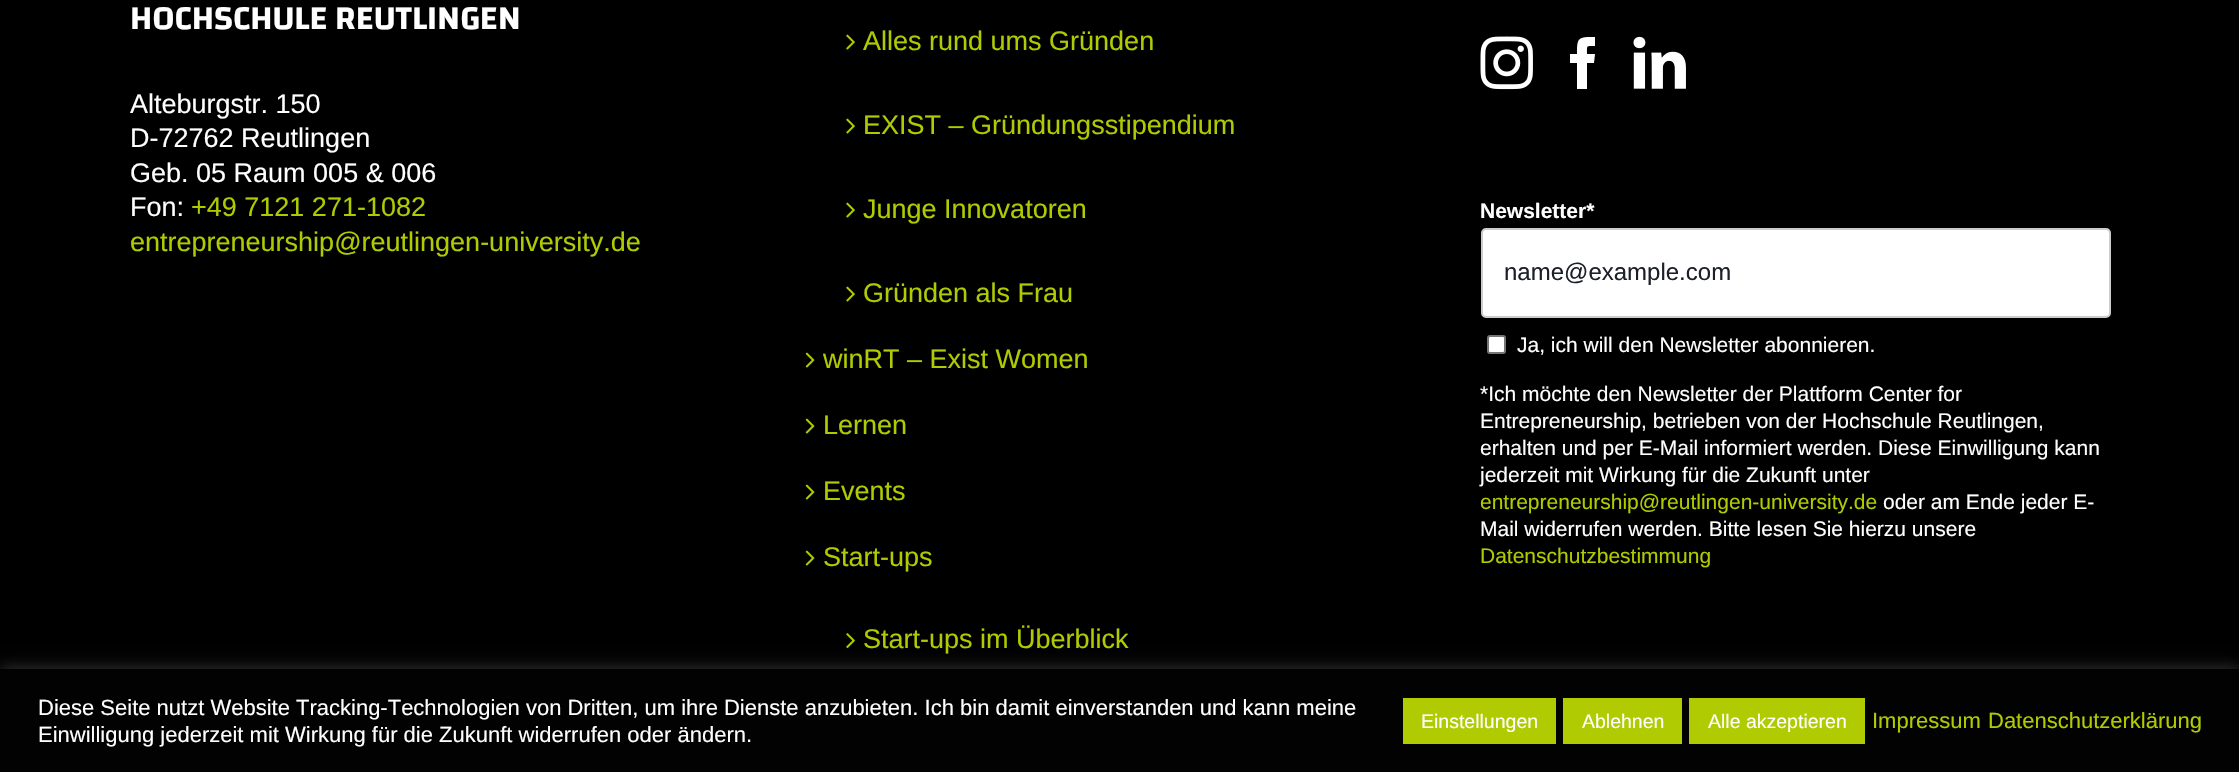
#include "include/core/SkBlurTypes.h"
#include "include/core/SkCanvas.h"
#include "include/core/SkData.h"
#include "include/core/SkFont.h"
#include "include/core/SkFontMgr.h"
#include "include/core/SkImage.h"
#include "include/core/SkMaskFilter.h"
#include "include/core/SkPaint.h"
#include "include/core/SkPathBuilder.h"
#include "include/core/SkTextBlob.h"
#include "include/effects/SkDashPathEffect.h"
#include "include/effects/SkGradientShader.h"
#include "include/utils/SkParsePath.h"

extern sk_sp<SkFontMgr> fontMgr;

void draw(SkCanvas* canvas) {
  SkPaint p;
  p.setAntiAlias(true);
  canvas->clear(SK_ColorBLACK);
  canvas->drawImageRect(SkImages::DeferredFromEncodedData(SkData::MakeFromFileName("images/1.png")), SkRect::MakeLTRB(846, 34, 855, 50), SkSamplingOptions());
  canvas->drawImageRect(SkImages::DeferredFromEncodedData(SkData::MakeFromFileName("images/1.png")), SkRect::MakeLTRB(846, 118, 855, 134), SkSamplingOptions());
  canvas->drawImageRect(SkImages::DeferredFromEncodedData(SkData::MakeFromFileName("images/1.png")), SkRect::MakeLTRB(846, 202, 855, 218), SkSamplingOptions());
  canvas->drawImageRect(SkImages::DeferredFromEncodedData(SkData::MakeFromFileName("images/1.png")), SkRect::MakeLTRB(846, 286, 855, 302), SkSamplingOptions());
  canvas->drawImageRect(SkImages::DeferredFromEncodedData(SkData::MakeFromFileName("images/2.png")), SkRect::MakeLTRB(805, 352, 815, 368), SkSamplingOptions());
  canvas->drawImageRect(SkImages::DeferredFromEncodedData(SkData::MakeFromFileName("images/2.png")), SkRect::MakeLTRB(805, 418, 815, 434), SkSamplingOptions());
  canvas->drawImageRect(SkImages::DeferredFromEncodedData(SkData::MakeFromFileName("images/2.png")), SkRect::MakeLTRB(805, 484, 815, 500), SkSamplingOptions());
  canvas->drawImageRect(SkImages::DeferredFromEncodedData(SkData::MakeFromFileName("images/2.png")), SkRect::MakeLTRB(805, 550, 815, 566), SkSamplingOptions());
  canvas->drawImageRect(SkImages::DeferredFromEncodedData(SkData::MakeFromFileName("images/3.png")), SkRect::MakeLTRB(846, 633, 855, 648), SkSamplingOptions());
  canvas->drawImageRect(SkImages::DeferredFromEncodedData(SkData::MakeFromFileName("images/4.png")), SkRect::MakeLTRB(1480, 36, 1533, 90), SkSamplingOptions());
  p.setColor(SK_ColorWHITE);
  canvas->drawPath(SkPathBuilder().moveTo(1587, 89).lineTo(1577, 89).lineTo(1577, 63).lineTo(1570, 63).lineTo(1570, 54).lineTo(1577, 54).cubicTo(1577, 37, 1578, 37, 1595, 37).lineTo(1595, 46).cubicTo(1586, 46, 1587, 45, 1587, 54).lineTo(1595, 54).lineTo(1594, 63).lineTo(1587, 63).close().detach(), p);
  canvas->drawImageRect(SkImages::DeferredFromEncodedData(SkData::MakeFromFileName("images/5.png")), SkRect::MakeLTRB(1633, 36, 1686, 89), SkSamplingOptions());
  canvas->drawRoundRect(SkRect::MakeLTRB(1482, 229, 2110, 317), 4, 4, p);
  p.setStyle(SkPaint::kStroke_Style);
  p.setStrokeWidth(2);
  p.setColor(SkColorSetRGB(204, 204, 204));
  canvas->drawRoundRect(SkRect::MakeLTRB(1482, 229, 2110, 317), 4, 4, p);
  p.setStyle(SkPaint::kFill_Style);
  p.setColor(SK_ColorWHITE);
  canvas->drawRoundRect(SkRect::MakeLTRB(1488, 336, 1505, 353), 2, 2, p);
  p.setStyle(SkPaint::kStroke_Style);
  p.setColor(SkColorSetRGB(118, 118, 118));
  canvas->drawRoundRect(SkRect::MakeLTRB(1488, 336, 1505, 353), 2, 2, p);
  p.setStyle(SkPaint::kFill_Style);
  p.setColor(SkColorSetARGB(77, 172, 171, 171));
  p.setMaskFilter(SkMaskFilter::MakeBlur(kNormal_SkBlurStyle, 7.5f));
  canvas->drawRect(SkRect::MakeLTRB(0, 668, 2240, 771), p);
  p.setMaskFilter(nullptr);
  p.setColor(SkColorSetRGB(2, 2, 2));
  canvas->drawRect(SkRect::MakeLTRB(0, 669, 2239, 772), p);
  p.setColor(SkColorSetRGB(176, 203, 2));
  canvas->drawRect(SkRect::MakeLTRB(1403, 698, 1556, 744), p);
  canvas->drawRect(SkRect::MakeLTRB(1563, 698, 1682, 744), p);
  canvas->drawRect(SkRect::MakeLTRB(1689, 698, 1865, 744), p);
  SkFont font1(fontMgr->matchFamilyStyle("Changa", SkFontStyle(600, SkFontStyle::kNormal_Width, SkFontStyle::kUpright_Slant)), 34.5f);
  font1.setSubpixel(true);
  p.setColor(SK_ColorWHITE);
  canvas->drawString("HOCHSCHULE REUTLINGEN", 130, 29, font1, p);
  SkFont font2(fontMgr->matchFamilyStyle("Liberation Sans", SkFontStyle::Normal()), 27);
  font2.setSubpixel(true);
  canvas->drawString("Alteburgstr. 150", 130, 113, font2, p);
  canvas->drawString("D-72762 Reutlingen", 130, 147, font2, p);
  canvas->drawString("Geb. 05 Raum 005 & 006", 130, 182, font2, p);
  canvas->drawString("Fon:", 130, 216, font2, p);
  p.setColor(SkColorSetRGB(176, 203, 2));
  canvas->drawString("+49 7121 271-1082", 191, 216, font2, p);
  canvas->drawString("entrepreneurship@reutlingen-university.de", 130, 251, font2, p);
  canvas->drawString("Alles rund ums Gründen", 863, 50, font2, p);
  canvas->drawString("EXIST – Gründungsstipendium", 863, 134, font2, p);
  canvas->drawString("Junge Innovatoren", 863, 218, font2, p);
  canvas->drawString("Gründen als Frau", 863, 302, font2, p);
  canvas->drawString("winRT – Exist Women", 823, 368, font2, p);
  canvas->drawString("Lernen", 823, 434, font2, p);
  canvas->drawString("Events", 823, 500, font2, p);
  canvas->drawString("Start-ups", 823, 566, font2, p);
  canvas->drawString("Start-ups im Überblick", 863, 648, font2, p);
  SkFont font3(fontMgr->matchFamilyStyle("Liberation Sans", SkFontStyle::Bold()), 21);
  font3.setSubpixel(true);
  p.setColor(SK_ColorWHITE);
  canvas->drawString("Newsletter*", 1480, 218, font3, p);
  SkFont font4(fontMgr->matchFamilyStyle("Liberation Sans", SkFontStyle::Normal()), 24);
  font4.setSubpixel(true);
  p.setColor(SkColorSetRGB(29, 32, 40));
  canvas->drawString("name@example.com", 1504, 280, font4, p);
  SkFont font5(fontMgr->matchFamilyStyle("Liberation Sans", SkFontStyle::Normal()), 21);
  font5.setSubpixel(true);
  p.setColor(SK_ColorWHITE);
  canvas->drawString("Ja, ich will den Newsletter abonnieren.", 1517, 352, font5, p);
  canvas->drawString("*Ich möchte den Newsletter der Plattform Center for", 1480, 401, font5, p);
  canvas->drawString("Entrepreneurship, betrieben von der Hochschule Reutlingen,", 1480, 428, font5, p);
  canvas->drawString("erhalten und per E-Mail informiert werden. Diese Einwilligung kann", 1480, 455, font5, p);
  canvas->drawString("jederzeit mit Wirkung für die Zukunft unter", 1480, 482, font5, p);
  p.setColor(SkColorSetRGB(176, 203, 2));
  canvas->drawString("entrepreneurship@reutlingen-university.de", 1480, 509, font5, p);
  p.setColor(SK_ColorWHITE);
  canvas->drawString("oder am Ende jeder E-", 1883, 509, font5, p);
  canvas->drawString("Mail widerrufen werden. Bitte lesen Sie hierzu unsere", 1480, 536, font5, p);
  p.setColor(SkColorSetRGB(176, 203, 2));
  canvas->drawString("Datenschutzbestimmung", 1480, 563, font5, p);
  SkFont font6(fontMgr->matchFamilyStyle("Liberation Sans", SkFontStyle::Normal()), 22);
  font6.setSubpixel(true);
  p.setColor(SK_ColorWHITE);
  canvas->drawString("Diese Seite nutzt Website Tracking-Technologien von Dritten, um ihre Dienste anzubieten. Ich bin damit einverstanden und kann meine", 38, 715, font6, p);
  canvas->drawString("Einwilligung jederzeit mit Wirkung für die Zukunft widerrufen oder ändern.", 38, 742, font6, p);
  SkFont font7(fontMgr->matchFamilyStyle("Liberation Sans", SkFontStyle::Normal()), 19.5f);
  font7.setSubpixel(true);
  canvas->drawString("Einstellungen", 1421, 728, font7, p);
  canvas->drawString("Ablehnen", 1582, 728, font7, p);
  canvas->drawString("Alle akzeptieren", 1708, 728, font7, p);
  p.setColor(SkColorSetRGB(176, 203, 2));
  canvas->drawString("Impressum", 1872, 728, font6, p);
  canvas->drawString("Datenschutzerklärung", 1988, 728, font6, p);
}
